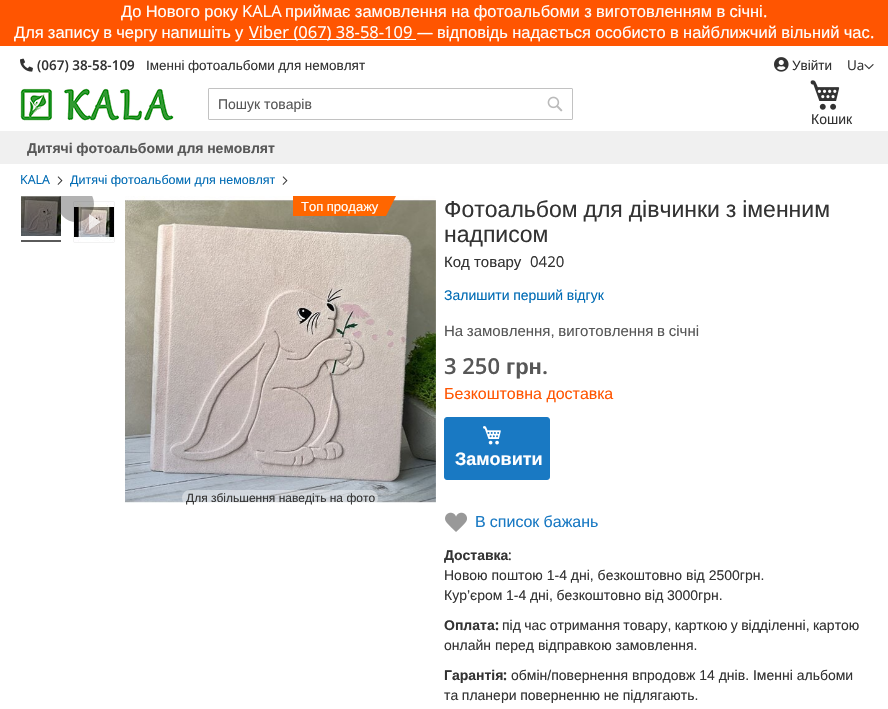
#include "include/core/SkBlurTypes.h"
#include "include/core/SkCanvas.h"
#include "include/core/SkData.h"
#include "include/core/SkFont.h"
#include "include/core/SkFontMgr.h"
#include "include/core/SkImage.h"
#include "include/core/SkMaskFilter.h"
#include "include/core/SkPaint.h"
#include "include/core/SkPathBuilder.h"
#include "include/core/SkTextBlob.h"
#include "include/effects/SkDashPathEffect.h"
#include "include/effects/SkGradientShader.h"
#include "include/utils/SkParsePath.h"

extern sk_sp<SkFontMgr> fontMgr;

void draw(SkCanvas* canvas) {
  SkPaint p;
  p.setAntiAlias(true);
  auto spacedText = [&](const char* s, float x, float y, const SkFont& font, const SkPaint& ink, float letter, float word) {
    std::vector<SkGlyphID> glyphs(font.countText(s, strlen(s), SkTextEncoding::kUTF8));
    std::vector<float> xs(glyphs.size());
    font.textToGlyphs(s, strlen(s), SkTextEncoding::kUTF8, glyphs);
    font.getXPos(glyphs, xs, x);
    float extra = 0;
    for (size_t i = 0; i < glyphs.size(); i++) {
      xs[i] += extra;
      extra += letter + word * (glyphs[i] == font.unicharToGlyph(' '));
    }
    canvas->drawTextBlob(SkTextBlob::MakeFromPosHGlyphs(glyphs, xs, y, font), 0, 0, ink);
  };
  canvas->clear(SK_ColorWHITE);
  p.setColor(SkColorSetRGB(255, 85, 1));
  canvas->drawRect(SkRect::MakeLTRB(0, 0, 888, 46), p);
  p.setColor(SK_ColorWHITE);
  canvas->drawRect(SkRect::MakeLTRB(249, 39, 416, 40), p);
  canvas->drawImageRect(SkImages::DeferredFromEncodedData(SkData::MakeFromFileName("images/1.png")), SkRect::MakeLTRB(20, 58, 33, 72), SkSamplingOptions());
  canvas->drawImageRect(SkImages::DeferredFromEncodedData(SkData::MakeFromFileName("images/2.png")), SkRect::MakeLTRB(774, 57, 789, 72), SkSamplingOptions());
  canvas->drawImageRect(SkImages::DeferredFromEncodedData(SkData::MakeFromFileName("images/3.png")), SkRect::MakeLTRB(864, 64, 874, 70), SkSamplingOptions());
  canvas->drawImageRect(SkImages::DeferredFromEncodedData(SkData::MakeFromFileName("images/4.png")), SkRect::MakeLTRB(20, 88, 174, 121), SkSamplingOptions());
  p.setStyle(SkPaint::kStroke_Style);
  p.setStrokeWidth(1);
  p.setColor(SkColorSetRGB(194, 194, 194));
  canvas->drawRoundRect(SkRect::MakeLTRB(208.5f, 88.5f, 572.5f, 119.5f), 0.5f, 0.5f, p);
  canvas->drawImageRect(SkImages::DeferredFromEncodedData(SkData::MakeFromFileName("images/5.png")), SkRect::MakeLTRB(547, 96, 563, 112), SkSamplingOptions());
  canvas->drawImageRect(SkImages::DeferredFromEncodedData(SkData::MakeFromFileName("images/6.png")), SkRect::MakeLTRB(810, 80, 840, 110), SkSamplingOptions());
  p.setStyle(SkPaint::kFill_Style);
  p.setColor(SkColorSetRGB(240, 240, 240));
  canvas->drawRect(SkRect::MakeLTRB(0, 131, 888, 164), p);
  canvas->drawImageRect(SkImages::DeferredFromEncodedData(SkData::MakeFromFileName("images/7.png")), SkRect::MakeLTRB(57, 176, 63, 185), SkSamplingOptions());
  canvas->drawImageRect(SkImages::DeferredFromEncodedData(SkData::MakeFromFileName("images/7.png")), SkRect::MakeLTRB(282, 176, 288, 185), SkSamplingOptions());
  canvas->drawImageRect(SkImages::DeferredFromEncodedData(SkData::MakeFromFileName("images/10.png")), SkRect::MakeLTRB(125, 196, 436, 503), SkSamplingOptions());
  p.setColor(SkColorSetRGB(255, 102, 0));
  canvas->drawRect(SkRect::MakeLTRB(293, 196, 386, 216), p);
  canvas->drawPath(SkPathBuilder().moveTo(386, 196).lineTo(396, 196).lineTo(386, 216).close().detach(), p);
  canvas->drawImageRect(SkImages::DeferredFromEncodedData(SkData::MakeFromFileName("images/8.png")), SkRect::MakeLTRB(21, 196, 61, 236), SkSamplingOptions());
  p.setColor(SkColorSetRGB(90, 90, 90));
  canvas->drawRect(SkRect::MakeLTRB(21, 240, 61, 242), p);
  p.setColor(SkColorSetARGB(77, 0, 0, 0));
  p.setMaskFilter(SkMaskFilter::MakeBlur(kNormal_SkBlurStyle, 0.5f));
  canvas->drawRect(SkRect::MakeLTRB(74, 202, 114, 242), p);
  p.setMaskFilter(nullptr);
  canvas->drawImageRect(SkImages::DeferredFromEncodedData(SkData::MakeFromFileName("images/9.png")), SkRect::MakeLTRB(74, 202, 114, 242), SkSamplingOptions());
  p.setColor(SkColorSetARGB(102, 255, 255, 255));
  canvas->drawRoundRect(SkRect::MakeLTRB(182, 490, 378, 506), 8, 8, p);
  p.setColor(SkColorSetRGB(25, 121, 195));
  canvas->drawRoundRect(SkRect::MakeLTRB(444.5f, 417.5f, 549.5f, 479.5f), 2.5f, 2.5f, p);
  p.setStyle(SkPaint::kStroke_Style);
  canvas->drawRoundRect(SkRect::MakeLTRB(444.5f, 417.5f, 549.5f, 479.5f), 2.5f, 2.5f, p);
  canvas->drawImageRect(SkImages::DeferredFromEncodedData(SkData::MakeFromFileName("images/11.png")), SkRect::MakeLTRB(483, 426, 501, 445), SkSamplingOptions());
  canvas->drawImageRect(SkImages::DeferredFromEncodedData(SkData::MakeFromFileName("images/12.png")), SkRect::MakeLTRB(445, 512, 467, 532), SkSamplingOptions());
  SkFont font1(fontMgr->matchFamilyStyle("Liberation Sans", SkFontStyle::Normal()), 16.5f);
  font1.setSubpixel(true);
  p.setStyle(SkPaint::kFill_Style);
  p.setColor(SK_ColorWHITE);
  spacedText("До Нового року", 121, 17, font1, p, 0, -0.25f);
  SkFont font2(fontMgr->matchFamilyStyle("Open Sans", SkFontStyle::Normal()), 16.5f);
  font2.setSubpixel(true);
  canvas->drawString("KALA", 242, 17, font2, p);
  spacedText("приймає замовлення на фотоальбоми з виготовленням в січні", 285, 17, font1, p, 0, -0.25f);
  canvas->drawString(".", 763, 17, font2, p);
  spacedText("Для запису в чергу напишіть у", 14, 38, font1, p, 0, -0.5f);
  canvas->drawString("Viber (067) 38-58-109 —", 249, 38, font2, p);
  spacedText("відповідь надається особисто в найближчий вільний час", 437, 38, font1, p, 0, -0.25f);
  canvas->drawString(".", 870, 38, font2, p);
  SkFont font3(fontMgr->matchFamilyStyle("Open Sans", SkFontStyle(600, SkFontStyle::kNormal_Width, SkFontStyle::kUpright_Slant)), 13.5f);
  font3.setSubpixel(true);
  p.setColor(SkColorSetRGB(51, 51, 51));
  canvas->drawString("(067) 38-58-109", 37, 70, font3, p);
  SkFont font4(fontMgr->matchFamilyStyle("Liberation Sans", SkFontStyle::Normal()), 13.5f);
  font4.setSubpixel(true);
  spacedText("Іменні фотоальбоми для немовлят", 146, 70, font4, p, 0, -0.25f);
  canvas->drawString("Увійти", 792, 70, font4, p);
  SkFont font5(fontMgr->matchFamilyStyle("Open Sans", SkFontStyle::Normal()), 13.5f);
  font5.setSubpixel(true);
  canvas->drawString("Ua", 847, 70, font5, p);
  SkFont font6(fontMgr->matchFamilyStyle("Liberation Sans", SkFontStyle::Normal()), 14);
  font6.setSubpixel(true);
  p.setColor(SkColorSetRGB(87, 87, 87));
  canvas->drawString("Пошук товарів", 218, 109, font6, p);
  p.setColor(SkColorSetRGB(51, 51, 51));
  canvas->drawString("Кошик", 811, 124, font6, p);
  SkFont font7(fontMgr->matchFamilyStyle("Liberation Sans", SkFontStyle::Bold()), 14);
  font7.setSubpixel(true);
  p.setColor(SkColorSetRGB(87, 87, 87));
  spacedText("Дитячі фотоальбоми для немовлят", 27, 153, font7, p, 0, -0.25f);
  SkFont font8(fontMgr->matchFamilyStyle("Open Sans", SkFontStyle::Normal()), 12.5f);
  font8.setSubpixel(true);
  p.setColor(SkColorSetRGB(0, 107, 180));
  canvas->drawString("KALA", 20, 184, font8, p);
  SkFont font9(fontMgr->matchFamilyStyle("Liberation Sans", SkFontStyle::Normal()), 12.5f);
  font9.setSubpixel(true);
  canvas->drawString("Дитячі фотоальбоми для немовлят", 70, 184, font9, p);
  SkFont font10(fontMgr->matchFamilyStyle("Liberation Sans", SkFontStyle::Normal()), 13);
  font10.setSubpixel(true);
  p.setColor(SK_ColorWHITE);
  canvas->drawString("Топ продажу", 301, 211, font10, p);
  canvas->save();
  canvas->clipRect(SkRect::MakeLTRB(20, 196, 125, 506));
  p.setColor(SkColorSetARGB(77, 0, 0, 0));
  canvas->drawCircle(76, 204, 18, p);
  canvas->restore();
  p.setColor(SkColorSetARGB(179, 255, 255, 255));
  canvas->drawPath(SkPathBuilder().moveTo(89, 230).lineTo(89, 214).lineTo(101, 222).close().detach(), p);
  SkFont font11(fontMgr->matchFamilyStyle("Liberation Sans", SkFontStyle::Normal()), 12);
  font11.setSubpixel(true);
  p.setColor(SkColorSetRGB(51, 51, 51));
  canvas->drawString("Для збільшення наведіть на фото", 186, 502, font11, p);
  SkFont font12(fontMgr->matchFamilyStyle("Liberation Sans", SkFontStyle::Normal()), 23);
  font12.setSubpixel(true);
  spacedText("Фотоальбом для дівчинки з іменним", 444, 217, font12, p, 0, -0.5f);
  canvas->drawString("надписом", 444, 242, font12, p);
  SkFont font13(fontMgr->matchFamilyStyle("Liberation Sans", SkFontStyle::Normal()), 15);
  font13.setSubpixel(true);
  canvas->drawString("Код товару", 444, 267, font13, p);
  SkFont font14(fontMgr->matchFamilyStyle("Open Sans", SkFontStyle::Normal()), 15);
  font14.setSubpixel(true);
  canvas->drawString("0420", 530, 267, font14, p);
  p.setColor(SkColorSetRGB(0, 107, 180));
  spacedText("Залишити перший відгук", 444, 300, font6, p, 0, -0.25f);
  p.setColor(SkColorSetRGB(87, 87, 87));
  spacedText("На замовлення, виготовлення в січні", 444, 336, font13, p, 0, -0.5f);
  SkFont font15(fontMgr->matchFamilyStyle("Open Sans", SkFontStyle(600, SkFontStyle::kNormal_Width, SkFontStyle::kUpright_Slant)), 22);
  font15.setSubpixel(true);
  canvas->drawString("3 250", 444, 374, font15, p);
  SkFont font16(fontMgr->matchFamilyStyle("Liberation Sans", SkFontStyle::Bold()), 22);
  font16.setSubpixel(true);
  canvas->drawString("грн", 506, 374, font16, p);
  canvas->drawString(".", 542, 374, font15, p);
  SkFont font17(fontMgr->matchFamilyStyle("Liberation Sans", SkFontStyle::Normal()), 16);
  font17.setSubpixel(true);
  p.setColor(SkColorSetRGB(255, 85, 1));
  canvas->drawString("Безкоштовна доставка", 444, 399, font17, p);
  SkFont font18(fontMgr->matchFamilyStyle("Liberation Sans", SkFontStyle::Bold()), 18);
  font18.setSubpixel(true);
  p.setColor(SK_ColorWHITE);
  canvas->drawString("Замовити", 455, 465, font18, p);
  p.setColor(SkColorSetRGB(25, 121, 195));
  spacedText("В список бажань", 475, 527, font17, p, 0, -0.25f);
  p.setColor(SkColorSetRGB(51, 51, 51));
  canvas->drawString("Доставка", 444, 560, font7, p);
  SkFont font19(fontMgr->matchFamilyStyle("Open Sans", SkFontStyle::Normal()), 14);
  font19.setSubpixel(true);
  canvas->drawString(":", 508, 560, font19, p);
  canvas->drawString("Новою поштою 1-4 дні, безкоштовно від 2500грн.", 444, 580, font6, p);
  spacedText("Кур’єром 1-4 дні, безкоштовно від 3000грн.", 444, 600, font6, p, 0, -0.25f);
  canvas->drawString("Оплата", 444, 630, font7, p);
  SkFont font20(fontMgr->matchFamilyStyle("Open Sans", SkFontStyle::Bold()), 14);
  font20.setSubpixel(true);
  canvas->drawString(":", 495, 630, font20, p);
  spacedText("під час отримання товару, карткою у відділенні, картою", 502, 630, font6, p, 0, -0.5f);
  canvas->drawString("онлайн перед відправкою замовлення.", 444, 650, font6, p);
  canvas->drawString("Гарантія", 444, 680, font7, p);
  canvas->drawString(":", 503, 680, font20, p);
  canvas->drawString("обмін/повернення впродовж 14 днів. Іменні альбоми", 511, 680, font6, p);
  spacedText("та планери поверненню не підлягають.", 444, 700, font6, p, 0, -0.25f);
}
